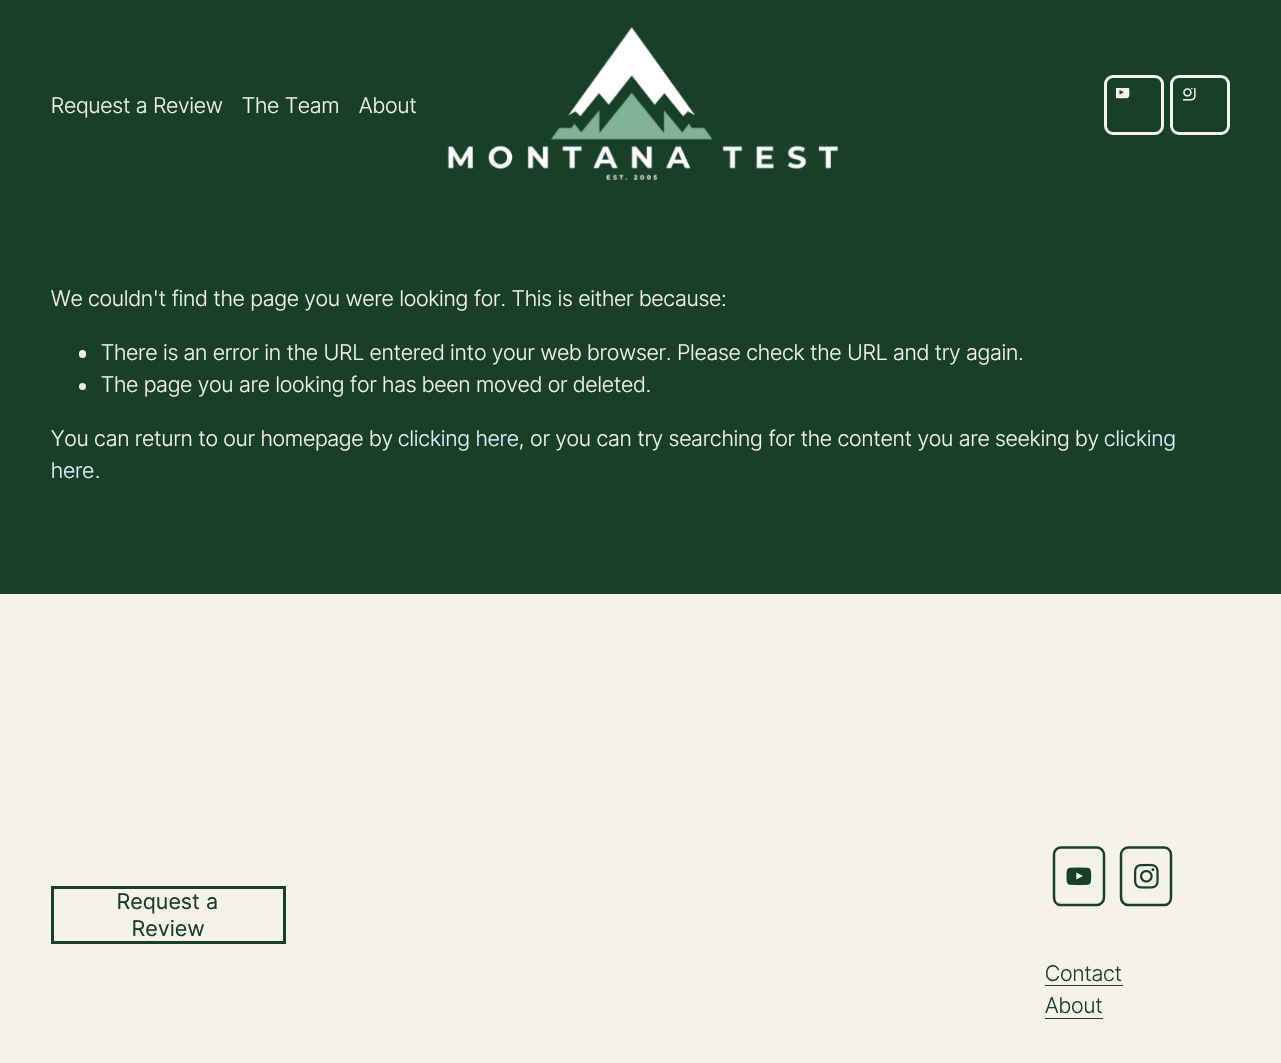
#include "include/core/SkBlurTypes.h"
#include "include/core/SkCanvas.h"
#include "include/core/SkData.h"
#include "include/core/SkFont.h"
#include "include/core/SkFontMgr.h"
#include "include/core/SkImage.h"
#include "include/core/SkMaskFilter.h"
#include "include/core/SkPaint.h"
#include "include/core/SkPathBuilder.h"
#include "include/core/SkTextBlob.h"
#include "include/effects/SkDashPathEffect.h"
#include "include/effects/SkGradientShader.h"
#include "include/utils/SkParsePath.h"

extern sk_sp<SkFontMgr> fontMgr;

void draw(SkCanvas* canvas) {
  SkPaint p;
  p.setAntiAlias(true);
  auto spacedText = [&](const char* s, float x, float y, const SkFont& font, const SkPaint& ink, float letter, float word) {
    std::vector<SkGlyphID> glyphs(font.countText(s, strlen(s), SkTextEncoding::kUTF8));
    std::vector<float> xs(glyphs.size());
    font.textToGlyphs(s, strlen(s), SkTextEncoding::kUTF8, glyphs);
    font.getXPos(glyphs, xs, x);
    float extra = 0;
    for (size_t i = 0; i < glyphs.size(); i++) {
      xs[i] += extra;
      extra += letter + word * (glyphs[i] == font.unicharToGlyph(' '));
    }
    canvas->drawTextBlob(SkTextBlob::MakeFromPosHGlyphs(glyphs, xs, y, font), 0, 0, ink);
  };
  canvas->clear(SkColorSetRGB(24, 64, 39));
  canvas->drawImageRect(SkImages::DeferredFromEncodedData(SkData::MakeFromFileName("images/1.png")), SkRect::MakeLTRB(447, 27, 839, 181), SkSamplingOptions());
  p.setStyle(SkPaint::kStroke_Style);
  p.setStrokeWidth(3);
  p.setColor(SkColorSetRGB(244, 242, 234));
  canvas->drawRoundRect(SkRect::MakeLTRB(1105.5f, 76.5f, 1162.5f, 133.5f), 7.5f, 7.5f, p);
  canvas->drawImageRect(SkImages::DeferredFromEncodedData(SkData::MakeFromFileName("images/2.png")), SkRect::MakeLTRB(1116, 88, 1130, 99), SkSamplingOptions());
  canvas->drawRoundRect(SkRect::MakeLTRB(1171.5f, 76.5f, 1228.5f, 133.5f), 7.5f, 7.5f, p);
  canvas->drawImageRect(SkImages::DeferredFromEncodedData(SkData::MakeFromFileName("images/3.png")), SkRect::MakeLTRB(1183, 88, 1196, 101), SkSamplingOptions());
  p.setStyle(SkPaint::kFill_Style);
  canvas->drawRoundRect(SkRect::MakeLTRB(79, 350, 86, 358), 3.5f, 3.5f, p);
  canvas->drawCircle(82.5f, 386.5f, 3.5f, p);
  canvas->drawRect(SkRect::MakeLTRB(0, 594, 1281, 1063), p);
  p.setStyle(SkPaint::kStroke_Style);
  p.setStrokeWidth(2.5f);
  p.setColor(SkColorSetRGB(24, 64, 39));
  canvas->drawPath(SkPathBuilder().moveTo(1060.5f, 847.5f).lineTo(1097, 847.5f).cubicTo(1101, 847.5f, 1104, 851, 1104, 855).lineTo(1104, 897).cubicTo(1104, 901.5f, 1101, 905, 1097, 905).lineTo(1060.5f, 905).cubicTo(1056.5f, 905, 1054, 901.5f, 1054, 897).lineTo(1054, 855).cubicTo(1054, 851, 1056.5f, 847.5f, 1060.5f, 847.5f).close().detach(), p);
  canvas->drawImageRect(SkImages::DeferredFromEncodedData(SkData::MakeFromFileName("images/4.png")), SkRect::MakeLTRB(1066, 867, 1092, 886), SkSamplingOptions());
  canvas->drawPath(SkPathBuilder().moveTo(1128, 847.5f).lineTo(1164.5f, 847.5f).cubicTo(1168.5f, 847.5f, 1171, 851, 1171, 855).lineTo(1171, 897).cubicTo(1171, 901.5f, 1168.5f, 905, 1164.5f, 905).lineTo(1128, 905).cubicTo(1124, 905, 1121, 901.5f, 1121, 897).lineTo(1121, 855).cubicTo(1121, 851, 1124, 847.5f, 1128, 847.5f).close().detach(), p);
  canvas->drawImageRect(SkImages::DeferredFromEncodedData(SkData::MakeFromFileName("images/5.png")), SkRect::MakeLTRB(1134, 863, 1159, 889), SkSamplingOptions());
  p.setStrokeWidth(3);
  canvas->drawRect(SkRect::MakeLTRB(52.5f, 887.5f, 284.5f, 942.5f), p);
  p.setStyle(SkPaint::kFill_Style);
  canvas->drawRect(SkRect::MakeLTRB(1045, 985, 1123, 986), p);
  canvas->drawRect(SkRect::MakeLTRB(1045, 1018, 1103, 1019), p);
  SkFont font1(fontMgr->matchFamilyStyle("Inter Tight", SkFontStyle(300, SkFontStyle::kNormal_Width, SkFontStyle::kUpright_Slant)), 21.55f);
  font1.setSubpixel(true);
  p.setColor(SkColorSetRGB(244, 242, 234));
  spacedText("Request a Review", 51, 113, font1, p, 0.22f, 0);
  spacedText("The Team", 242, 113, font1, p, 0.22f, 0);
  spacedText("About", 359, 113, font1, p, 0.22f, 0);
  spacedText("We couldn't find the page you were looking for. This is either because:", 51, 306, font1, p, 0.22f, 0);
  spacedText("There is an error in the URL entered into your web browser. Please check the URL and try again.", 101, 360, font1, p, 0.22f, 0);
  spacedText("The page you are looking for has been moved or deleted.", 101, 392, font1, p, 0.22f, 0);
  spacedText("You can return to our homepage by", 51, 446, font1, p, 0.22f, 0);
  p.setColor(SkColorSetRGB(223, 239, 255));
  spacedText("clicking here", 398, 446, font1, p, 0.22f, 0);
  p.setColor(SkColorSetRGB(244, 242, 234));
  spacedText(", or you can try searching for the content you are seeking by", 519, 446, font1, p, 0.22f, 0);
  p.setColor(SkColorSetRGB(223, 239, 255));
  spacedText("clicking", 1104, 446, font1, p, 0.22f, 0);
  spacedText("here", 51, 478, font1, p, 0.22f, 0);
  p.setColor(SkColorSetRGB(244, 242, 234));
  spacedText(".", 95, 478, font1, p, 0.22f, 0);
  SkFont font2(fontMgr->matchFamilyStyle("Inter Tight", SkFontStyle::Normal()), 21.55f);
  font2.setSubpixel(true);
  p.setColor(SkColorSetRGB(24, 64, 39));
  spacedText("Request a", 117, 909, font2, p, 1, 0);
  spacedText("Review", 132, 936, font2, p, 1, 0);
  spacedText("Contact", 1045, 981, font1, p, 0.22f, 0);
  spacedText("About", 1045, 1013, font1, p, 0.22f, 0);
}
